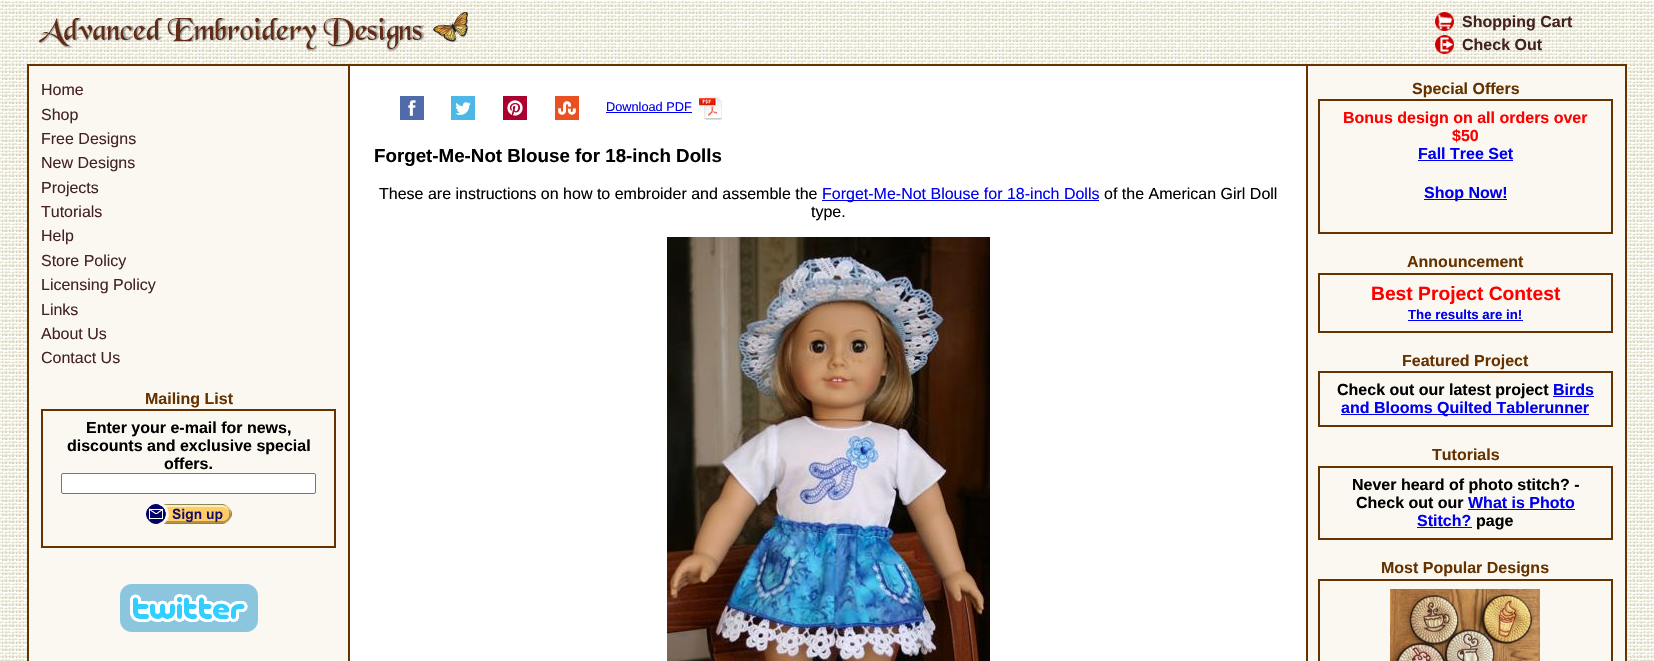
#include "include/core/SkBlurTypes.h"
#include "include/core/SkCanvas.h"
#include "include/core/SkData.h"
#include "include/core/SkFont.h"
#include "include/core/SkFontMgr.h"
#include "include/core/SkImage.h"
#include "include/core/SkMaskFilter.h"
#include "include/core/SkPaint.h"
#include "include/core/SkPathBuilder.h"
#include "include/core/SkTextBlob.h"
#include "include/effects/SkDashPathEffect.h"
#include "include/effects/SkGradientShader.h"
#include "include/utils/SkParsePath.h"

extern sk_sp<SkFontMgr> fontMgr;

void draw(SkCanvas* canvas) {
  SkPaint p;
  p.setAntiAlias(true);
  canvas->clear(SK_ColorWHITE);
  canvas->drawImageRect(SkImages::DeferredFromEncodedData(SkData::MakeFromFileName("images/1.png")), SkRect::MakeLTRB(0, 0, 1654, 661), SkSamplingOptions());
  canvas->drawImageRect(SkImages::DeferredFromEncodedData(SkData::MakeFromFileName("images/2.png")), SkRect::MakeLTRB(39, 12, 469, 51), SkSamplingOptions());
  canvas->drawImageRect(SkImages::DeferredFromEncodedData(SkData::MakeFromFileName("images/3.png")), SkRect::MakeLTRB(1435, 12, 1454, 31), SkSamplingOptions());
  canvas->drawImageRect(SkImages::DeferredFromEncodedData(SkData::MakeFromFileName("images/4.png")), SkRect::MakeLTRB(1435, 35, 1454, 54), SkSamplingOptions());
  p.setColor(SkColorSetRGB(250, 248, 241));
  canvas->drawRect(SkRect::MakeLTRB(1308, 66, 1625, 661), p);
  p.setStyle(SkPaint::kStroke_Style);
  p.setStrokeWidth(2);
  p.setColor(SkColorSetRGB(102, 51, 0));
  canvas->drawRect(SkRect::MakeLTRB(28, 65, 1626, 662), p);
  p.setStyle(SkPaint::kFill_Style);
  canvas->drawRect(SkRect::MakeLTRB(1306, 66, 1308, 661), p);
  p.setColor(SkColorSetRGB(250, 248, 241));
  canvas->drawRect(SkRect::MakeLTRB(29, 66, 348, 661), p);
  p.setColor(SkColorSetRGB(102, 51, 0));
  canvas->drawRect(SkRect::MakeLTRB(41, 409, 336, 411), p);
  canvas->drawRect(SkRect::MakeLTRB(334, 411, 336, 548), p);
  canvas->drawRect(SkRect::MakeLTRB(41, 546, 336, 548), p);
  canvas->drawRect(SkRect::MakeLTRB(41, 411, 43, 548), p);
  p.setColor(SK_ColorWHITE);
  canvas->drawRoundRect(SkRect::MakeLTRB(61.5f, 473.5f, 315.5f, 493.5f), 1.5f, 1.5f, p);
  p.setStyle(SkPaint::kStroke_Style);
  p.setStrokeWidth(1);
  p.setColor(SkColorSetRGB(118, 118, 118));
  canvas->drawRoundRect(SkRect::MakeLTRB(61.5f, 473.5f, 315.5f, 493.5f), 1.5f, 1.5f, p);
  canvas->drawImageRect(SkImages::DeferredFromEncodedData(SkData::MakeFromFileName("images/5.png")), SkRect::MakeLTRB(146, 504, 232, 524), SkSamplingOptions());
  canvas->drawImageRect(SkImages::DeferredFromEncodedData(SkData::MakeFromFileName("images/6.png")), SkRect::MakeLTRB(120, 584, 258, 632), SkSamplingOptions());
  p.setStyle(SkPaint::kFill_Style);
  p.setColor(SK_ColorWHITE);
  canvas->drawRect(SkRect::MakeLTRB(350, 66, 1306, 661), p);
  p.setColor(SkColorSetRGB(102, 51, 0));
  canvas->drawRect(SkRect::MakeLTRB(348, 66, 350, 661), p);
  canvas->drawImageRect(SkImages::DeferredFromEncodedData(SkData::MakeFromFileName("images/7.png")), SkRect::MakeLTRB(400, 96, 424, 120), SkSamplingOptions());
  canvas->drawImageRect(SkImages::DeferredFromEncodedData(SkData::MakeFromFileName("images/8.png")), SkRect::MakeLTRB(451, 96, 475, 120), SkSamplingOptions());
  canvas->drawImageRect(SkImages::DeferredFromEncodedData(SkData::MakeFromFileName("images/9.png")), SkRect::MakeLTRB(503, 96, 527, 120), SkSamplingOptions());
  canvas->drawImageRect(SkImages::DeferredFromEncodedData(SkData::MakeFromFileName("images/10.png")), SkRect::MakeLTRB(555, 96, 579, 120), SkSamplingOptions());
  p.setColor(SkColorSetRGB(0, 0, 238));
  canvas->drawRect(SkRect::MakeLTRB(606, 112, 692, 113), p);
  canvas->drawImageRect(SkImages::DeferredFromEncodedData(SkData::MakeFromFileName("images/11.png")), SkRect::MakeLTRB(699, 96, 722, 120), SkSamplingOptions());
  canvas->drawRect(SkRect::MakeLTRB(822, 200, 1099, 201), p);
  canvas->drawImageRect(SkImages::DeferredFromEncodedData(SkData::MakeFromFileName("images/12.png")), SkRect::MakeLTRB(667, 237, 990, 661), SkSamplingOptions());
  p.setColor(SkColorSetRGB(102, 51, 0));
  canvas->drawRect(SkRect::MakeLTRB(1318, 99, 1613, 101), p);
  canvas->drawRect(SkRect::MakeLTRB(1611, 101, 1613, 234), p);
  canvas->drawRect(SkRect::MakeLTRB(1318, 232, 1613, 234), p);
  canvas->drawRect(SkRect::MakeLTRB(1318, 101, 1320, 234), p);
  p.setColor(SkColorSetRGB(0, 0, 238));
  canvas->drawRect(SkRect::MakeLTRB(1418, 160, 1513, 161), p);
  canvas->drawRect(SkRect::MakeLTRB(1424, 199, 1507, 200), p);
  p.setColor(SkColorSetRGB(102, 51, 0));
  canvas->drawRect(SkRect::MakeLTRB(1318, 273, 1613, 275), p);
  canvas->drawRect(SkRect::MakeLTRB(1611, 275, 1613, 333), p);
  canvas->drawRect(SkRect::MakeLTRB(1318, 331, 1613, 333), p);
  canvas->drawRect(SkRect::MakeLTRB(1318, 275, 1320, 333), p);
  p.setColor(SkColorSetRGB(0, 0, 238));
  canvas->drawRect(SkRect::MakeLTRB(1408, 320, 1523, 321), p);
  p.setColor(SkColorSetRGB(102, 51, 0));
  canvas->drawRect(SkRect::MakeLTRB(1318, 371, 1613, 373), p);
  canvas->drawRect(SkRect::MakeLTRB(1611, 373, 1613, 427), p);
  canvas->drawRect(SkRect::MakeLTRB(1318, 425, 1613, 427), p);
  canvas->drawRect(SkRect::MakeLTRB(1318, 373, 1320, 427), p);
  p.setColor(SkColorSetRGB(0, 0, 238));
  canvas->drawRect(SkRect::MakeLTRB(1553, 396, 1594, 397), p);
  canvas->drawRect(SkRect::MakeLTRB(1341, 414, 1589, 415), p);
  p.setColor(SkColorSetRGB(102, 51, 0));
  canvas->drawRect(SkRect::MakeLTRB(1318, 466, 1613, 468), p);
  canvas->drawRect(SkRect::MakeLTRB(1611, 468, 1613, 540), p);
  canvas->drawRect(SkRect::MakeLTRB(1318, 538, 1613, 540), p);
  canvas->drawRect(SkRect::MakeLTRB(1318, 468, 1320, 540), p);
  p.setColor(SkColorSetRGB(0, 0, 238));
  canvas->drawRect(SkRect::MakeLTRB(1468, 509, 1575, 510), p);
  canvas->drawRect(SkRect::MakeLTRB(1417, 527, 1472, 528), p);
  p.setColor(SkColorSetRGB(102, 51, 0));
  canvas->drawRect(SkRect::MakeLTRB(1318, 579, 1613, 581), p);
  canvas->drawRect(SkRect::MakeLTRB(1611, 581, 1613, 661), p);
  canvas->drawRect(SkRect::MakeLTRB(1318, 581, 1320, 661), p);
  canvas->drawImageRect(SkImages::DeferredFromEncodedData(SkData::MakeFromFileName("images/13.png")), SkRect::MakeLTRB(1390, 589, 1540, 661), SkSamplingOptions());
  SkFont font1(fontMgr->matchFamilyStyle("Liberation Sans", SkFontStyle::Bold()), 16);
  font1.setSubpixel(true);
  p.setColor(SkColorSetRGB(69, 35, 35));
  canvas->drawString("Shopping Cart", 1462, 27, font1, p);
  canvas->drawString("Check Out", 1462, 50, font1, p);
  SkFont font2(fontMgr->matchFamilyStyle("Liberation Sans", SkFontStyle::Normal()), 16);
  font2.setSubpixel(true);
  canvas->drawString("Home", 41, 95, font2, p);
  canvas->drawString("Shop", 41, 120, font2, p);
  canvas->drawString("Free Designs", 41, 144, font2, p);
  canvas->drawString("New Designs", 41, 168, font2, p);
  canvas->drawString("Projects", 41, 193, font2, p);
  canvas->drawString("Tutorials", 41, 217, font2, p);
  canvas->drawString("Help", 41, 241, font2, p);
  canvas->drawString("Store Policy", 41, 266, font2, p);
  canvas->drawString("Licensing Policy", 41, 290, font2, p);
  canvas->drawString("Links", 41, 315, font2, p);
  canvas->drawString("About Us", 41, 339, font2, p);
  canvas->drawString("Contact Us", 41, 363, font2, p);
  p.setColor(SkColorSetRGB(102, 51, 0));
  canvas->drawString("Mailing List", 145, 404, font1, p);
  p.setColor(SK_ColorBLACK);
  canvas->drawString("Enter your e-mail for news,", 86, 433, font1, p);
  canvas->drawString("discounts and exclusive special", 67, 451, font1, p);
  canvas->drawString("offers.", 164, 469, font1, p);
  SkFont font3(fontMgr->matchFamilyStyle("Liberation Sans", SkFontStyle::Normal()), 12.75f);
  font3.setSubpixel(true);
  p.setColor(SkColorSetRGB(0, 0, 238));
  canvas->drawString("Download PDF", 606, 111, font3, p);
  SkFont font4(fontMgr->matchFamilyStyle("Liberation Sans", SkFontStyle::Bold()), 18.75f);
  font4.setSubpixel(true);
  p.setColor(SK_ColorBLACK);
  canvas->drawString("Forget-Me-Not Blouse for 18-inch Dolls", 374, 162, font4, p);
  canvas->drawString("These are instructions on how to embroider and assemble the", 379, 199, font2, p);
  p.setColor(SkColorSetRGB(0, 0, 238));
  canvas->drawString("Forget-Me-Not Blouse for 18-inch Dolls", 822, 199, font2, p);
  p.setColor(SK_ColorBLACK);
  canvas->drawString("of the American Girl Doll", 1104, 199, font2, p);
  canvas->drawString("type.", 811, 217, font2, p);
  p.setColor(SkColorSetRGB(102, 51, 0));
  canvas->drawString("Special Offers", 1412, 94, font1, p);
  p.setColor(SkColorSetRGB(255, 0, 0));
  canvas->drawString("Bonus design on all orders over", 1343, 123, font1, p);
  canvas->drawString("$50", 1452, 141, font1, p);
  p.setColor(SkColorSetRGB(0, 0, 238));
  canvas->drawString("Fall Tree Set", 1418, 159, font1, p);
  canvas->drawString("Shop Now!", 1424, 198, font1, p);
  p.setColor(SkColorSetRGB(102, 51, 0));
  canvas->drawString("Announcement", 1407, 267, font1, p);
  SkFont font5(fontMgr->matchFamilyStyle("Liberation Sans", SkFontStyle::Bold()), 19.25f);
  font5.setSubpixel(true);
  p.setColor(SkColorSetRGB(255, 0, 0));
  canvas->drawString("Best Project Contest", 1371, 300, font5, p);
  SkFont font6(fontMgr->matchFamilyStyle("Liberation Sans", SkFontStyle::Bold()), 13.25f);
  font6.setSubpixel(true);
  p.setColor(SkColorSetRGB(0, 0, 238));
  canvas->drawString("The results are in!", 1408, 319, font6, p);
  p.setColor(SkColorSetRGB(102, 51, 0));
  canvas->drawString("Featured Project", 1402, 366, font1, p);
  p.setColor(SK_ColorBLACK);
  canvas->drawString("Check out our latest project", 1337, 395, font1, p);
  p.setColor(SkColorSetRGB(0, 0, 238));
  canvas->drawString("Birds", 1553, 395, font1, p);
  canvas->drawString("and Blooms Quilted Tablerunner", 1341, 413, font1, p);
  p.setColor(SkColorSetRGB(102, 51, 0));
  canvas->drawString("Tutorials", 1432, 460, font1, p);
  p.setColor(SK_ColorBLACK);
  canvas->drawString("Never heard of photo stitch? -", 1352, 490, font1, p);
  canvas->drawString("Check out our", 1356, 508, font1, p);
  p.setColor(SkColorSetRGB(0, 0, 238));
  canvas->drawString("What is Photo", 1468, 508, font1, p);
  canvas->drawString("Stitch?", 1417, 526, font1, p);
  p.setColor(SK_ColorBLACK);
  canvas->drawString("page", 1476, 526, font1, p);
  p.setColor(SkColorSetRGB(102, 51, 0));
  canvas->drawString("Most Popular Designs", 1381, 573, font1, p);
}
